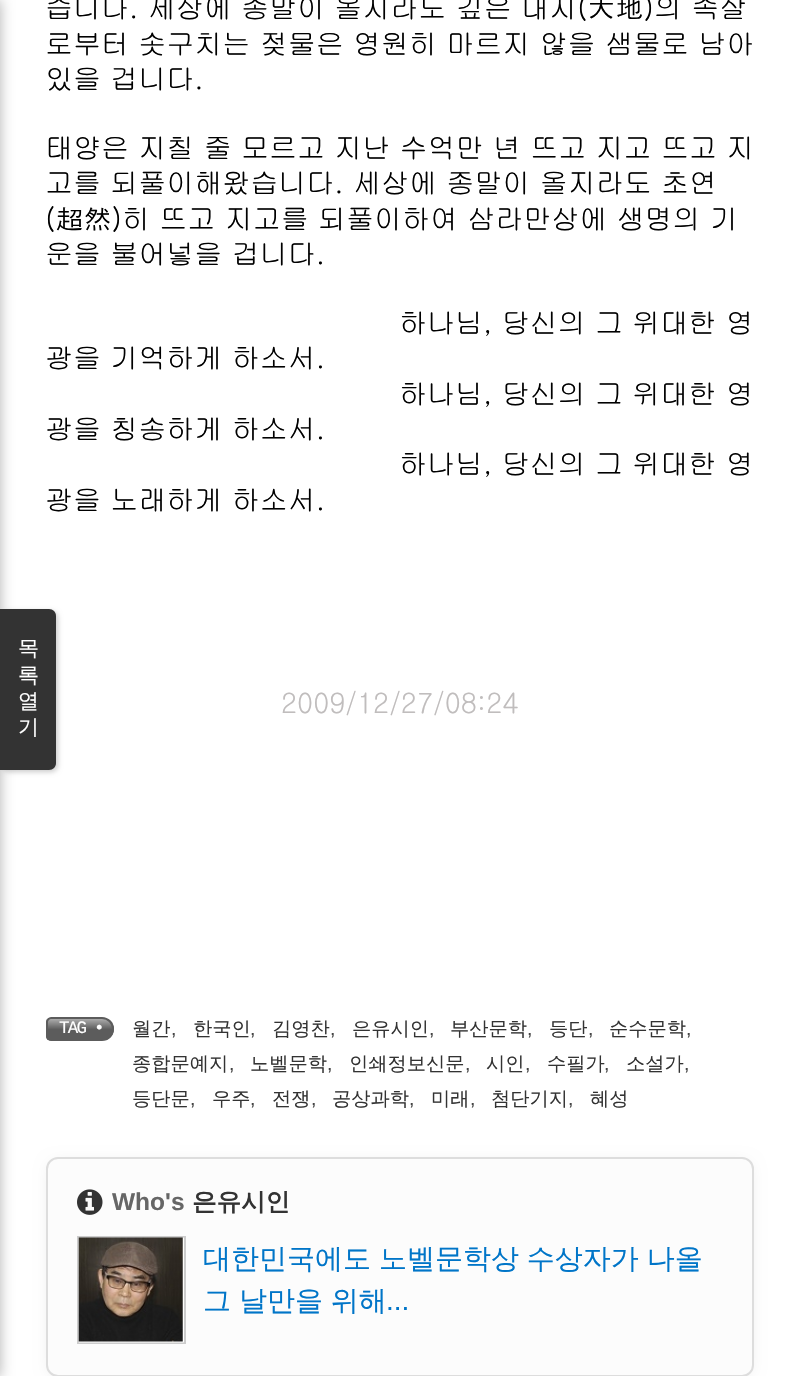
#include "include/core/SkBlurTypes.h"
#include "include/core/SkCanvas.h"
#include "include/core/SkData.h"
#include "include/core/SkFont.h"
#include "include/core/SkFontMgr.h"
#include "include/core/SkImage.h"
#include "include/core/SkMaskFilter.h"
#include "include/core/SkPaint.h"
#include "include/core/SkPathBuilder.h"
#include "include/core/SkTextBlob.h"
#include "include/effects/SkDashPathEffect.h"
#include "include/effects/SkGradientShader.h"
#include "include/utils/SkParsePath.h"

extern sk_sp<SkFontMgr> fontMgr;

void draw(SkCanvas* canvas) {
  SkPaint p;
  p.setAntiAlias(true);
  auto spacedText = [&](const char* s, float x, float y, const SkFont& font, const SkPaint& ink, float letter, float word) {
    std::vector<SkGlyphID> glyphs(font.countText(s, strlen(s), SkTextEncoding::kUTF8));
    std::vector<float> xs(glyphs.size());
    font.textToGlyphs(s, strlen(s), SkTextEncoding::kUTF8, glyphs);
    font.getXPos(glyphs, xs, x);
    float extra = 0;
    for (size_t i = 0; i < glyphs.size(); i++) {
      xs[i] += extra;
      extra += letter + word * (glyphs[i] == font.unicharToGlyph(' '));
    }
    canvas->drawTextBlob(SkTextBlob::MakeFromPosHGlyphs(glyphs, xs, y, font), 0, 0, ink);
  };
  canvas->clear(SK_ColorWHITE);
  p.setColor(SkColorSetARGB(77, 0, 0, 0));
  p.setMaskFilter(SkMaskFilter::MakeBlur(kNormal_SkBlurStyle, 7));
  canvas->drawRect(SkRect::MakeLTRB(-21, 0, 0, 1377), p);
  p.setMaskFilter(nullptr);
  p.setColor(SkColorSetARGB(51, 0, 0, 0));
  p.setMaskFilter(SkMaskFilter::MakeBlur(kNormal_SkBlurStyle, 2.5f));
  canvas->drawRoundRect(SkRect::MakeLTRB(2, 611, 58, 772), 7, 7, p);
  p.setMaskFilter(nullptr);
  p.setColor(SkColorSetRGB(51, 51, 51));
  canvas->drawPath(SkPathBuilder().moveTo(0, 609).lineTo(49, 609).cubicTo(53, 609, 56, 612, 56, 616).lineTo(56, 763).cubicTo(56, 767, 53, 770, 49, 770).lineTo(0, 770).close().detach(), p);
  canvas->save();
  canvas->clipPath(SkPathBuilder().moveTo(51, 1017).lineTo(102, 1017).cubicTo(108.5f, 1017, 114, 1022.5f, 114, 1029).cubicTo(114, 1035.5f, 108.5f, 1041, 102, 1041).lineTo(51, 1041).cubicTo(48, 1041, 46, 1039, 46, 1036).lineTo(46, 1022).cubicTo(46, 1019, 48, 1017, 51, 1017).close().detach(), true);
  {
    const SkColor colors[] = {SK_ColorWHITE, SkColorSetRGB(92, 92, 92)};
    const float stops[] = {0, 0.67f};
    const SkPoint ends[] = {{80, 1008}, {80, 1040}};
    p.setShader(SkGradientShader::MakeLinear(ends, colors, stops, 2, SkTileMode::kClamp));
    p.setAlpha(255);
  }
  canvas->drawRect(SkRect::MakeLTRB(46, 1019, 114, 1040), p);
  canvas->restore();
  p.setStyle(SkPaint::kStroke_Style);
  p.setStrokeWidth(2);
  p.setShader(nullptr);
  p.setColor(SkColorSetRGB(92, 92, 92));
  canvas->drawPath(SkPathBuilder().moveTo(51, 1018).lineTo(102, 1018).cubicTo(108, 1018, 113, 1023, 113, 1029).cubicTo(113, 1035, 108, 1040, 102, 1040).lineTo(51, 1040).cubicTo(49, 1040, 47, 1038, 47, 1036).lineTo(47, 1022).cubicTo(47, 1020, 49, 1018, 51, 1018).close().detach(), p);
  p.setStyle(SkPaint::kFill_Style);
  p.setColor(SkColorSetARGB(26, 0, 0, 0));
  p.setMaskFilter(SkMaskFilter::MakeBlur(kNormal_SkBlurStyle, 8));
  canvas->drawRoundRect(SkRect::MakeLTRB(51, 1164, 749, 1374), 7, 7, p);
  p.setMaskFilter(nullptr);
  p.setColor(SkColorSetRGB(252, 252, 252));
  canvas->drawRoundRect(SkRect::MakeLTRB(47, 1158, 753, 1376), 11, 11, p);
  p.setStyle(SkPaint::kStroke_Style);
  p.setColor(SkColorSetRGB(221, 221, 221));
  canvas->drawRoundRect(SkRect::MakeLTRB(47, 1158, 753, 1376), 11, 11, p);
  canvas->drawImageRect(SkImages::DeferredFromEncodedData(SkData::MakeFromFileName("images/1.png")), SkRect::MakeLTRB(77, 1189, 103, 1215), SkSamplingOptions());
  p.setColor(SkColorSetRGB(204, 204, 204));
  canvas->drawRect(SkRect::MakeLTRB(78, 1237, 185, 1343), p);
  canvas->drawImageRect(SkImages::DeferredFromEncodedData(SkData::MakeFromFileName("images/2.png")), SkRect::MakeLTRB(78, 1237, 184, 1343), SkSamplingOptions());
  SkFont font1(fontMgr->matchFamilyStyle("WenQuanYi Zen Hei", SkFontStyle(500, SkFontStyle::kNormal_Width, SkFontStyle::kUpright_Slant)), 21);
  font1.setSubpixel(true);
  p.setStyle(SkPaint::kFill_Style);
  p.setColor(SK_ColorWHITE);
  canvas->drawString("목", 18, 655, font1, p);
  canvas->drawString("록", 18, 682, font1, p);
  canvas->drawString("열", 18, 708, font1, p);
  canvas->drawString("기", 18, 734, font1, p);
  SkFont font2(fontMgr->matchFamilyStyle("Gulim", SkFontStyle::Normal()), 28);
  font2.setSubpixel(true);
  p.setColor(SK_ColorBLACK);
  canvas->drawString("습니다. 세상에 종말이 올지라도 깊은 대지(大地)의 속살", 45, 18, font2, p);
  canvas->drawString("로부터 솟구치는 젖물은 영원히 마르지 않을 샘물로 남아", 45, 54, font2, p);
  canvas->drawString("있을 겁니다.", 45, 89, font2, p);
  canvas->drawString("태양은 지칠 줄 모르고 지난 수억만 년 뜨고 지고 뜨고 지", 45, 158, font2, p);
  canvas->drawString("고를 되풀이해왔습니다. 세상에 종말이 올지라도 초연", 45, 193, font2, p);
  canvas->drawString("(超然)히 뜨고 지고를 되풀이하여 삼라만상에 생명의 기", 45, 229, font2, p);
  canvas->drawString("운을 불어넣을 겁니다.", 45, 264, font2, p);
  canvas->drawString("하나님, 당신의 그 위대한 영", 399, 333, font2, p);
  canvas->drawString("광을 기억하게 하소서.", 45, 368, font2, p);
  canvas->drawString("하나님, 당신의 그 위대한 영", 399, 404, font2, p);
  canvas->drawString("광을 칭송하게 하소서.", 45, 439, font2, p);
  canvas->drawString("하나님, 당신의 그 위대한 영", 399, 474, font2, p);
  canvas->drawString("광을 노래하게 하소서.", 45, 510, font2, p);
  p.setColor(SkColorSetRGB(192, 189, 189));
  canvas->drawString("2009/12/27/08:24", 281, 713, font2, p);
  SkFont font3(fontMgr->matchFamilyStyle("Liberation Mono", SkFontStyle::Normal()), 17.5f);
  font3.setSubpixel(true);
  p.setColor(SK_ColorWHITE);
  spacedText("TAG •", 59, 1033, font3, p, -1.75f, 0);
  SkFont font4(fontMgr->matchFamilyStyle("WenQuanYi Zen Hei", SkFontStyle(500, SkFontStyle::kNormal_Width, SkFontStyle::kUpright_Slant)), 19.25f);
  font4.setSubpixel(true);
  p.setColor(SkColorSetRGB(51, 51, 51));
  canvas->drawString("월간", 132, 1035, font4, p);
  SkFont font5(fontMgr->matchFamilyStyle("Liberation Sans", SkFontStyle::Normal()), 19.25f);
  font5.setSubpixel(true);
  p.setColor(SkColorSetRGB(68, 68, 68));
  canvas->drawString(",", 171, 1035, font5, p);
  p.setColor(SkColorSetRGB(51, 51, 51));
  canvas->drawString("한국인", 193, 1035, font4, p);
  p.setColor(SkColorSetRGB(68, 68, 68));
  canvas->drawString(",", 250, 1035, font5, p);
  p.setColor(SkColorSetRGB(51, 51, 51));
  canvas->drawString("김영찬", 272, 1035, font4, p);
  p.setColor(SkColorSetRGB(68, 68, 68));
  canvas->drawString(",", 330, 1035, font5, p);
  p.setColor(SkColorSetRGB(51, 51, 51));
  canvas->drawString("은유시인", 352, 1035, font4, p);
  p.setColor(SkColorSetRGB(68, 68, 68));
  canvas->drawString(",", 429, 1035, font5, p);
  p.setColor(SkColorSetRGB(51, 51, 51));
  canvas->drawString("부산문학", 450, 1035, font4, p);
  p.setColor(SkColorSetRGB(68, 68, 68));
  canvas->drawString(",", 527, 1035, font5, p);
  p.setColor(SkColorSetRGB(51, 51, 51));
  canvas->drawString("등단", 549, 1035, font4, p);
  p.setColor(SkColorSetRGB(68, 68, 68));
  canvas->drawString(",", 588, 1035, font5, p);
  p.setColor(SkColorSetRGB(51, 51, 51));
  canvas->drawString("순수문학", 609, 1035, font4, p);
  p.setColor(SkColorSetRGB(68, 68, 68));
  canvas->drawString(",", 686, 1035, font5, p);
  p.setColor(SkColorSetRGB(51, 51, 51));
  canvas->drawString("종합문예지", 132, 1070, font4, p);
  p.setColor(SkColorSetRGB(68, 68, 68));
  canvas->drawString(",", 229, 1070, font5, p);
  p.setColor(SkColorSetRGB(51, 51, 51));
  canvas->drawString("노벨문학", 250, 1070, font4, p);
  p.setColor(SkColorSetRGB(68, 68, 68));
  canvas->drawString(",", 327, 1070, font5, p);
  p.setColor(SkColorSetRGB(51, 51, 51));
  canvas->drawString("인쇄정보신문", 349, 1070, font4, p);
  p.setColor(SkColorSetRGB(68, 68, 68));
  canvas->drawString(",", 465, 1070, font5, p);
  p.setColor(SkColorSetRGB(51, 51, 51));
  canvas->drawString("시인", 486, 1070, font4, p);
  p.setColor(SkColorSetRGB(68, 68, 68));
  canvas->drawString(",", 525, 1070, font5, p);
  p.setColor(SkColorSetRGB(51, 51, 51));
  canvas->drawString("수필가", 547, 1070, font4, p);
  p.setColor(SkColorSetRGB(68, 68, 68));
  canvas->drawString(",", 604, 1070, font5, p);
  p.setColor(SkColorSetRGB(51, 51, 51));
  canvas->drawString("소설가", 626, 1070, font4, p);
  p.setColor(SkColorSetRGB(68, 68, 68));
  canvas->drawString(",", 684, 1070, font5, p);
  p.setColor(SkColorSetRGB(51, 51, 51));
  canvas->drawString("등단문", 132, 1105, font4, p);
  p.setColor(SkColorSetRGB(68, 68, 68));
  canvas->drawString(",", 190, 1105, font5, p);
  p.setColor(SkColorSetRGB(51, 51, 51));
  canvas->drawString("우주", 212, 1105, font4, p);
  p.setColor(SkColorSetRGB(68, 68, 68));
  canvas->drawString(",", 250, 1105, font5, p);
  p.setColor(SkColorSetRGB(51, 51, 51));
  canvas->drawString("전쟁", 272, 1105, font4, p);
  p.setColor(SkColorSetRGB(68, 68, 68));
  canvas->drawString(",", 311, 1105, font5, p);
  p.setColor(SkColorSetRGB(51, 51, 51));
  canvas->drawString("공상과학", 332, 1105, font4, p);
  p.setColor(SkColorSetRGB(68, 68, 68));
  canvas->drawString(",", 409, 1105, font5, p);
  p.setColor(SkColorSetRGB(51, 51, 51));
  canvas->drawString("미래", 431, 1105, font4, p);
  p.setColor(SkColorSetRGB(68, 68, 68));
  canvas->drawString(",", 470, 1105, font5, p);
  p.setColor(SkColorSetRGB(51, 51, 51));
  canvas->drawString("첨단기지", 491, 1105, font4, p);
  p.setColor(SkColorSetRGB(68, 68, 68));
  canvas->drawString(",", 568, 1105, font5, p);
  p.setColor(SkColorSetRGB(51, 51, 51));
  canvas->drawString("혜성", 590, 1105, font4, p);
  SkFont font6(fontMgr->matchFamilyStyle("Liberation Sans", SkFontStyle::Bold()), 24.5f);
  font6.setSubpixel(true);
  p.setColor(SkColorSetRGB(102, 102, 102));
  canvas->drawString("Who's", 112, 1210, font6, p);
  SkFont font7(fontMgr->matchFamilyStyle("WenQuanYi Zen Hei", SkFontStyle::Bold()), 24.5f);
  font7.setSubpixel(true);
  p.setColor(SkColorSetRGB(51, 51, 51));
  canvas->drawString("은유시인", 192, 1210, font7, p);
  SkFont font8(fontMgr->matchFamilyStyle("WenQuanYi Zen Hei", SkFontStyle(500, SkFontStyle::kNormal_Width, SkFontStyle::kUpright_Slant)), 28);
  font8.setSubpixel(true);
  p.setColor(SkColorSetRGB(0, 117, 200));
  spacedText("대한민국에도 노벨문학상 수상자가 나올", 203, 1268, font8, p, 0, -0.5f);
  spacedText("그 날만을 위해", 203, 1310, font8, p, 0, -0.5f);
  SkFont font9(fontMgr->matchFamilyStyle("Liberation Sans", SkFontStyle::Normal()), 28);
  font9.setSubpixel(true);
  canvas->drawString("...", 386, 1310, font9, p);
}
